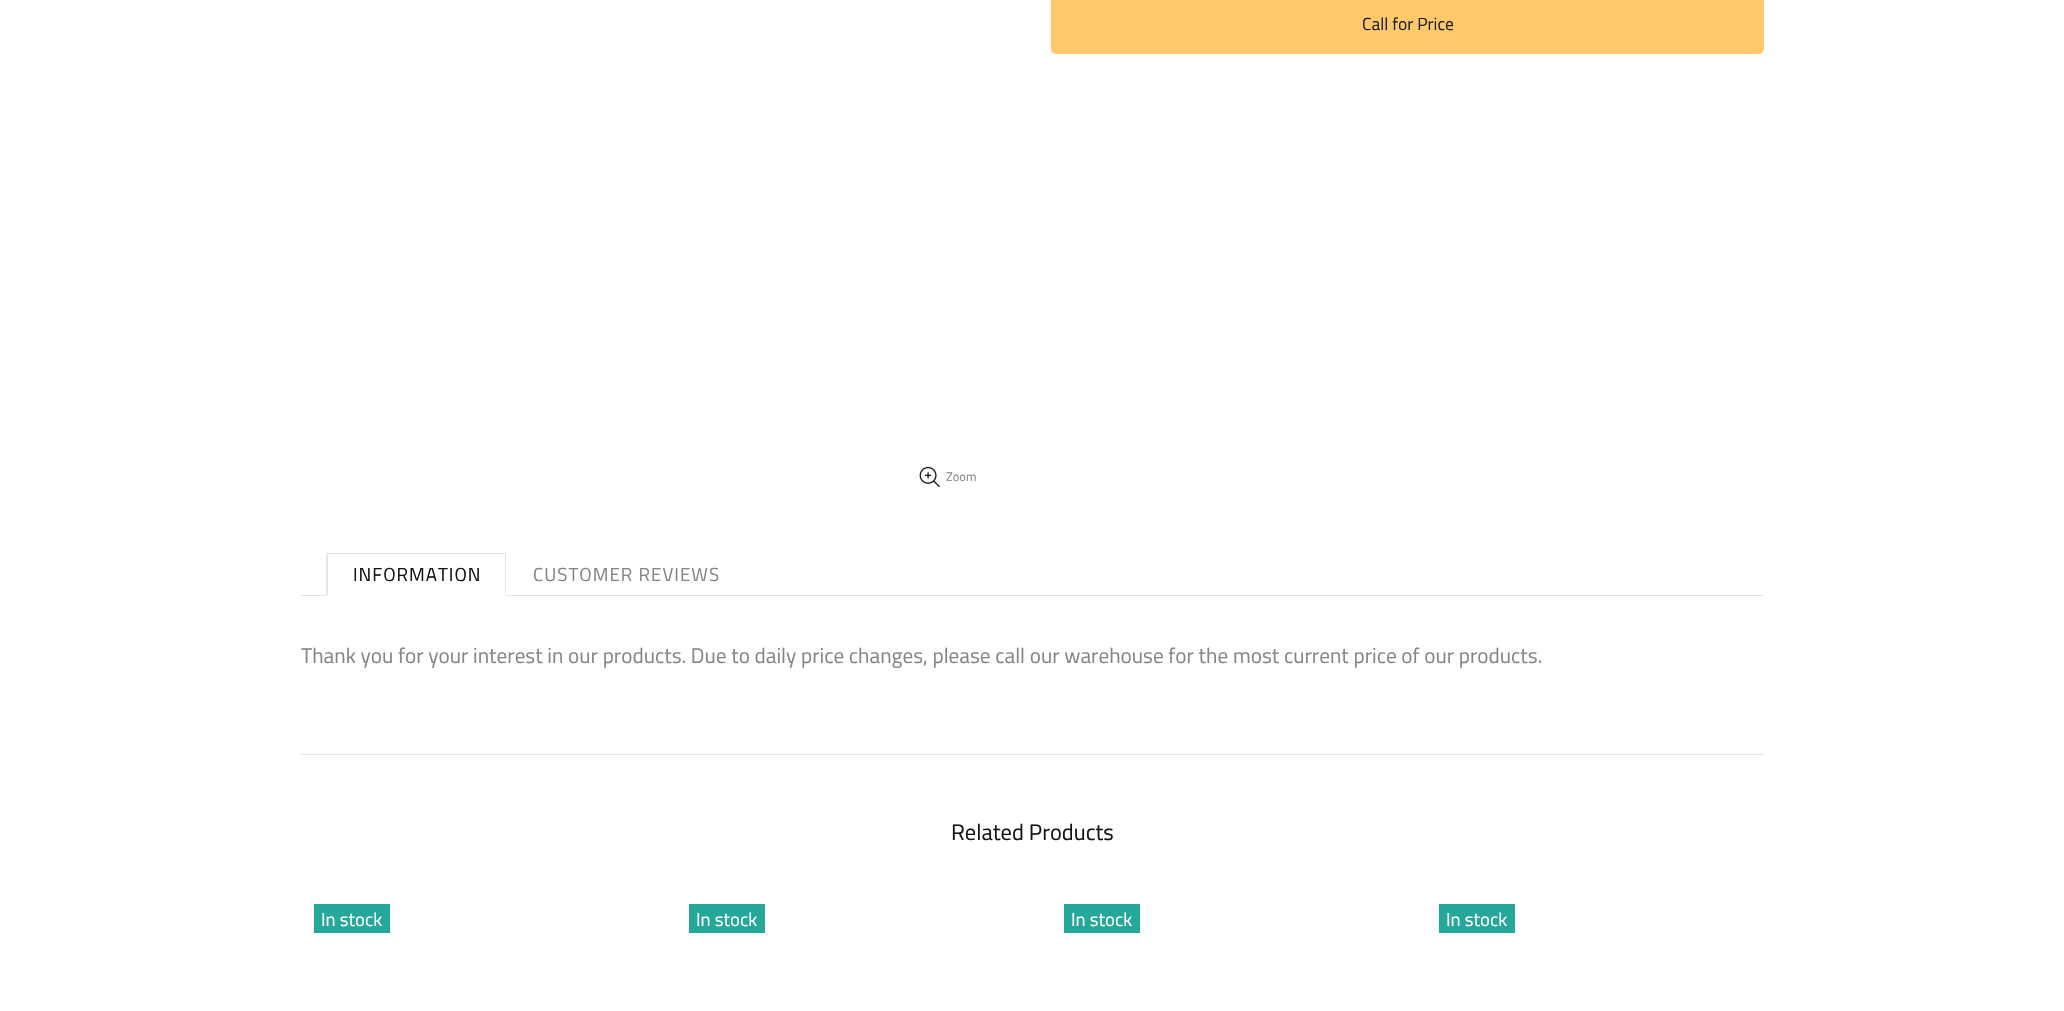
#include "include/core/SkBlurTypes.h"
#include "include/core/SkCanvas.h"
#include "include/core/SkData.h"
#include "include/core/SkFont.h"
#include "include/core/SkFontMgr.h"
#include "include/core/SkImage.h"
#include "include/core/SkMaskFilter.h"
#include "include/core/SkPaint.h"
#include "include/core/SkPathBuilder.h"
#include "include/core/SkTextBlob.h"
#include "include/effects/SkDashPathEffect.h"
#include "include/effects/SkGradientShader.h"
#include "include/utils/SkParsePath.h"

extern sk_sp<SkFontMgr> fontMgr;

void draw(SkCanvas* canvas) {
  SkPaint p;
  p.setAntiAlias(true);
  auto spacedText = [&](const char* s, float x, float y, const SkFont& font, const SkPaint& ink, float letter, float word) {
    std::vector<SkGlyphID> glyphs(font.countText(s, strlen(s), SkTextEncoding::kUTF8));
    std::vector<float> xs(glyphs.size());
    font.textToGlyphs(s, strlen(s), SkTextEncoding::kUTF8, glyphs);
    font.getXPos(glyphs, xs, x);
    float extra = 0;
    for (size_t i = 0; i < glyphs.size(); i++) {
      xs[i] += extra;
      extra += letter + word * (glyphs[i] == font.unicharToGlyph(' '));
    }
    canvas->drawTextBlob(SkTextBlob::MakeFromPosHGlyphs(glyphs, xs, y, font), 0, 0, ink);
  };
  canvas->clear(SK_ColorWHITE);
  p.setColor(SkColorSetRGB(255, 201, 107));
  canvas->drawRoundRect(SkRect::MakeLTRB(1051, -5, 1764, 54), 5, 5, p);
  canvas->drawImageRect(SkImages::DeferredFromEncodedData(SkData::MakeFromFileName("images/1.png")), SkRect::MakeLTRB(919, 466, 940, 488), SkSamplingOptions());
  p.setColor(SkColorSetRGB(229, 229, 229));
  canvas->drawRect(SkRect::MakeLTRB(301, 595, 1764, 596), p);
  p.setColor(SK_ColorWHITE);
  canvas->drawRect(SkRect::MakeLTRB(326, 595, 506, 596), p);
  p.setColor(SkColorSetRGB(229, 229, 229));
  canvas->drawRect(SkRect::MakeLTRB(326, 553, 506, 554), p);
  canvas->drawPath(SkPathBuilder().moveTo(506, 552).lineTo(506, 596).lineTo(505, 595).lineTo(505, 554).close().detach(), p);
  canvas->drawPath(SkPathBuilder().moveTo(326, 596).lineTo(326, 552).lineTo(328, 554).lineTo(328, 595).close().detach(), p);
  canvas->drawRect(SkRect::MakeLTRB(301, 754, 1764, 755), p);
  p.setColor(SkColorSetRGB(37, 167, 153));
  canvas->drawRect(SkRect::MakeLTRB(314, 904, 390, 933), p);
  canvas->drawRect(SkRect::MakeLTRB(689, 904, 765, 933), p);
  canvas->drawRect(SkRect::MakeLTRB(1064, 904, 1140, 933), p);
  canvas->drawRect(SkRect::MakeLTRB(1439, 904, 1515, 933), p);
  SkFont font1(fontMgr->matchFamilyStyle("Titillium Web", SkFontStyle::Normal()), 17.5f);
  font1.setSubpixel(true);
  p.setColor(SkColorSetRGB(32, 34, 35));
  canvas->drawString("Call for Price", 1362, 30, font1, p);
  SkFont font2(fontMgr->matchFamilyStyle("Titillium Web", SkFontStyle::Normal()), 12.5f);
  font2.setSubpixel(true);
  p.setColor(SkColorSetRGB(133, 133, 133));
  canvas->drawString("Zoom", 946, 481, font2, p);
  SkFont font3(fontMgr->matchFamilyStyle("Titillium Web", SkFontStyle::Normal()), 18.75f);
  font3.setSubpixel(true);
  p.setColor(SkColorSetRGB(20, 20, 20));
  spacedText("INFORMATION", 353, 581, font3, p, 1, 0);
  p.setColor(SkColorSetRGB(133, 133, 133));
  spacedText("CUSTOMER REVIEWS", 533, 581, font3, p, 1, 0);
  SkFont font4(fontMgr->matchFamilyStyle("Titillium Web", SkFontStyle::Normal()), 21.25f);
  font4.setSubpixel(true);
  canvas->drawString("Thank you for your interest in our products. Due to daily price changes, please call our warehouse for the most current price of our products.", 301, 663, font4, p);
  SkFont font5(fontMgr->matchFamilyStyle("Titillium Web", SkFontStyle::Normal()), 22.5f);
  font5.setSubpixel(true);
  p.setColor(SkColorSetRGB(20, 20, 20));
  canvas->drawString("Related Products", 951, 840, font5, p);
  p.setColor(SK_ColorWHITE);
  canvas->drawString("In stock", 321, 926, font3, p);
  canvas->drawString("In stock", 696, 926, font3, p);
  canvas->drawString("In stock", 1071, 926, font3, p);
  canvas->drawString("In stock", 1446, 926, font3, p);
}
